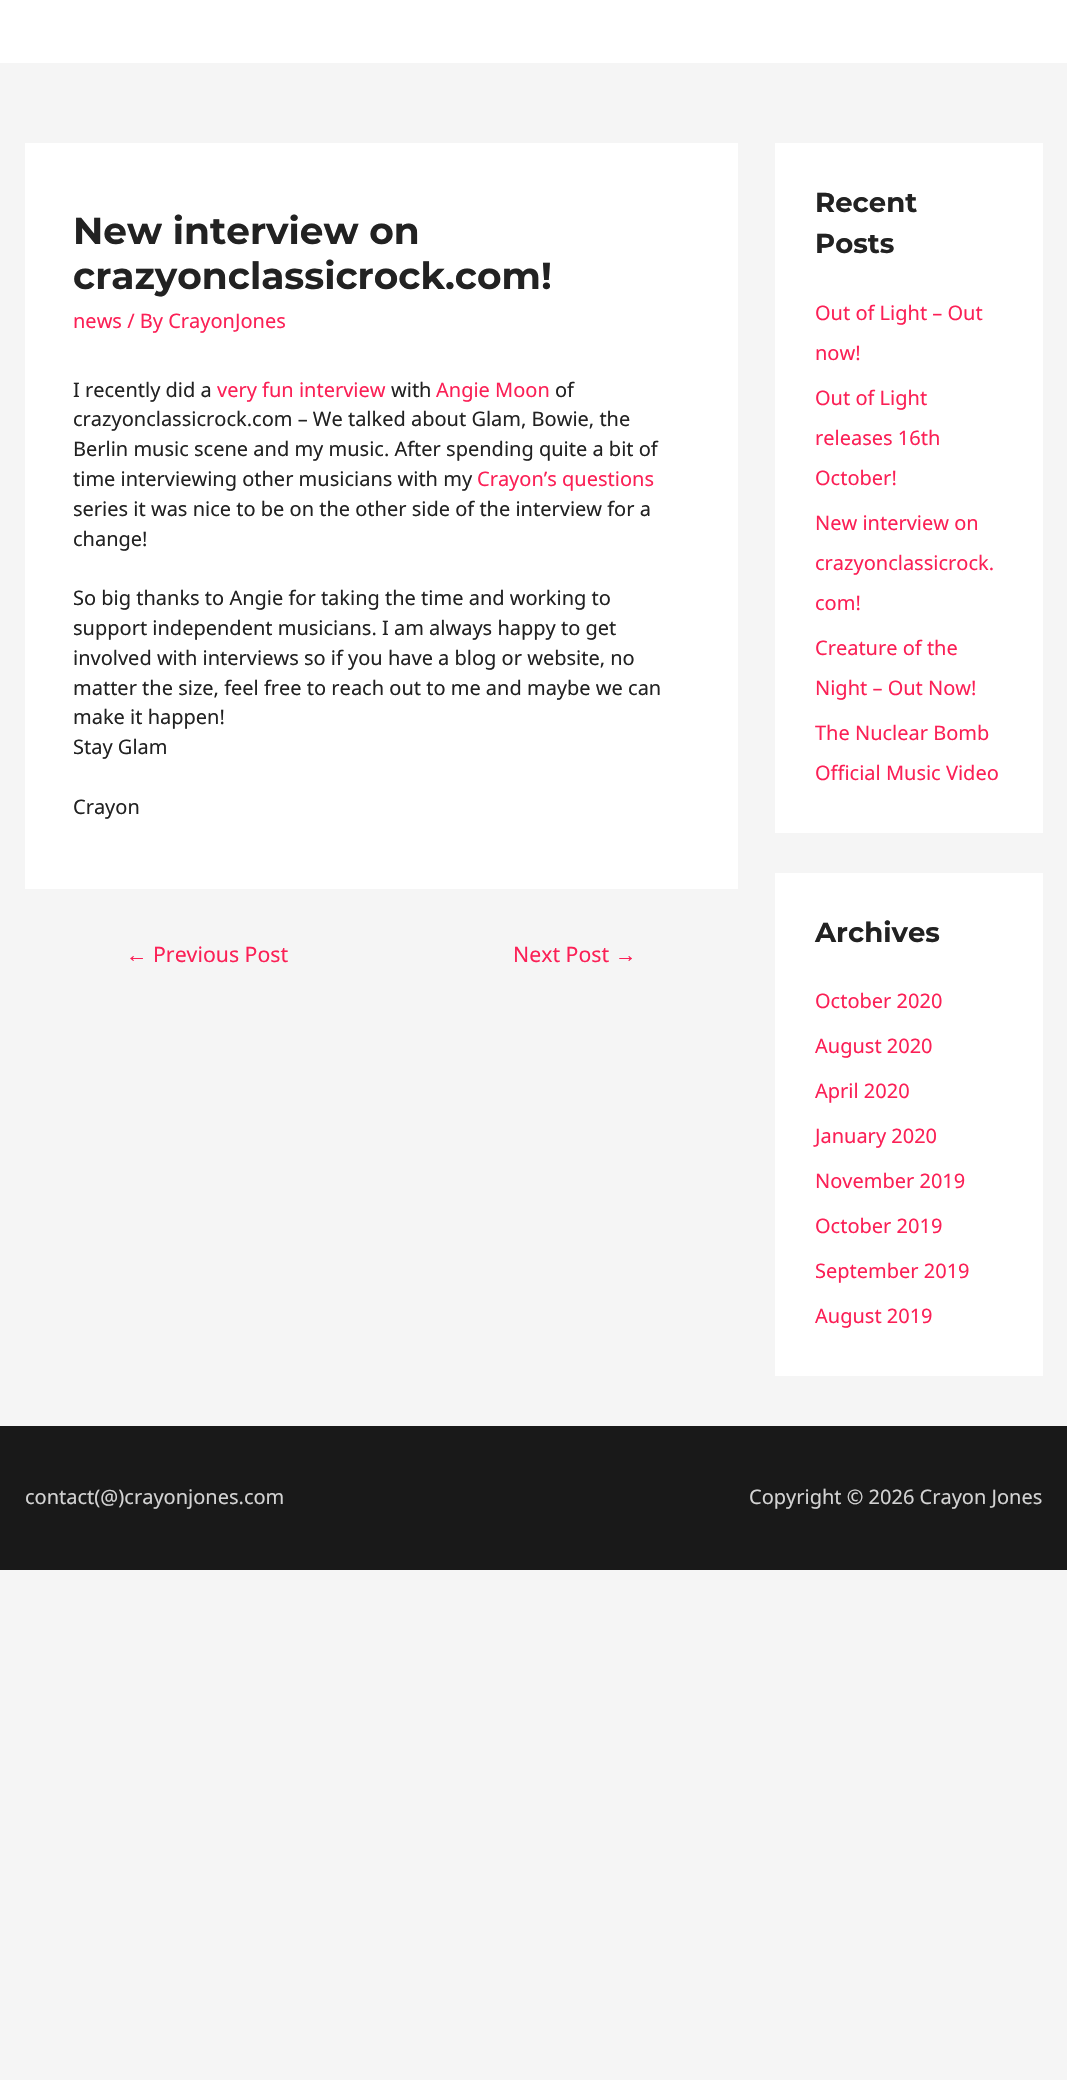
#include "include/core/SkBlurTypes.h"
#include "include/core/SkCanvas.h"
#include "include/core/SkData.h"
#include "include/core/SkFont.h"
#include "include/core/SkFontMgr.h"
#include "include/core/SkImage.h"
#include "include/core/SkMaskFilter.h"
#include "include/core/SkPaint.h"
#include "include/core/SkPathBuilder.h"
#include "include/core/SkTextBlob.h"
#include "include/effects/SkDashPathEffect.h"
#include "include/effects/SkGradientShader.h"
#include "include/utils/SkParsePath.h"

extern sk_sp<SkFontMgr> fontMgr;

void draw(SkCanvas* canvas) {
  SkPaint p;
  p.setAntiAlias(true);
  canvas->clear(SkColorSetRGB(245, 245, 245));
  p.setColor(SK_ColorWHITE);
  canvas->drawRect(SkRect::MakeLTRB(0, 0, 1067, 63), p);
  canvas->drawRect(SkRect::MakeLTRB(25, 143, 738, 889), p);
  canvas->drawRect(SkRect::MakeLTRB(775, 143, 1043, 833), p);
  canvas->drawRect(SkRect::MakeLTRB(775, 873, 1043, 1376), p);
  p.setColor(SkColorSetRGB(25, 25, 25));
  canvas->drawRect(SkRect::MakeLTRB(0, 1426, 1067, 1570), p);
  SkFont font1(fontMgr->matchFamilyStyle("Montserrat", SkFontStyle(100, SkFontStyle::kNormal_Width, SkFontStyle::kUpright_Slant)), 37.5f);
  font1.setSubpixel(true);
  p.setColor(SkColorSetRGB(34, 34, 34));
  canvas->drawString("New interview on", 73, 244, font1, p);
  canvas->drawString("crazyonclassicrock.com!", 73, 289, font1, p);
  SkFont font2(fontMgr->matchFamilyStyle("Noto Sans", SkFontStyle::Normal()), 20);
  font2.setSubpixel(true);
  p.setColor(SkColorSetRGB(251, 32, 86));
  canvas->drawString("news / By CrayonJones", 73, 328, font2, p);
  p.setColor(SkColorSetRGB(34, 34, 34));
  canvas->drawString("I recently did a", 73, 397, font2, p);
  p.setColor(SkColorSetRGB(251, 32, 86));
  canvas->drawString("very fun interview", 217, 397, font2, p);
  p.setColor(SkColorSetRGB(34, 34, 34));
  canvas->drawString("with", 391, 397, font2, p);
  p.setColor(SkColorSetRGB(251, 32, 86));
  canvas->drawString("Angie Moon", 436, 397, font2, p);
  p.setColor(SkColorSetRGB(34, 34, 34));
  canvas->drawString("of", 555, 397, font2, p);
  canvas->drawString("crazyonclassicrock.com – We talked about Glam, Bowie, the", 73, 426, font2, p);
  canvas->drawString("Berlin music scene and my music. After spending quite a bit of", 73, 456, font2, p);
  canvas->drawString("time interviewing other musicians with my", 73, 486, font2, p);
  p.setColor(SkColorSetRGB(251, 32, 86));
  canvas->drawString("Crayon’s questions", 477, 486, font2, p);
  p.setColor(SkColorSetRGB(34, 34, 34));
  canvas->drawString("series it was nice to be on the other side of the interview for a", 73, 516, font2, p);
  canvas->drawString("change!", 73, 546, font2, p);
  canvas->drawString("So big thanks to Angie for taking the time and working to", 73, 605, font2, p);
  canvas->drawString("support independent musicians. I am always happy to get", 73, 635, font2, p);
  canvas->drawString("involved with interviews so if you have a blog or website, no", 73, 665, font2, p);
  canvas->drawString("matter the size, feel free to reach out to me and maybe we can", 73, 695, font2, p);
  canvas->drawString("make it happen!", 73, 724, font2, p);
  canvas->drawString("Stay Glam", 73, 754, font2, p);
  canvas->drawString("Crayon", 73, 814, font2, p);
  SkFont font3(fontMgr->matchFamilyStyle("Liberation Sans", SkFontStyle::Normal()), 21.25f);
  font3.setSubpixel(true);
  p.setColor(SkColorSetRGB(251, 32, 86));
  canvas->drawString("←", 126, 962, font3, p);
  SkFont font4(fontMgr->matchFamilyStyle("Noto Sans", SkFontStyle::Normal()), 21.25f);
  font4.setSubpixel(true);
  canvas->drawString("Previous Post", 153, 962, font4, p);
  canvas->drawString("Next Post", 513, 962, font4, p);
  canvas->drawString("→", 615, 962, font3, p);
  SkFont font5(fontMgr->matchFamilyStyle("Montserrat", SkFontStyle(100, SkFontStyle::kNormal_Width, SkFontStyle::kUpright_Slant)), 27.5f);
  font5.setSubpixel(true);
  p.setColor(SkColorSetRGB(34, 34, 34));
  canvas->drawString("Recent", 815, 212, font5, p);
  canvas->drawString("Posts", 815, 253, font5, p);
  p.setColor(SkColorSetRGB(251, 32, 86));
  canvas->drawString("Out of Light – Out", 815, 320, font2, p);
  canvas->drawString("now!", 815, 360, font2, p);
  canvas->drawString("Out of Light", 815, 405, font2, p);
  canvas->drawString("releases 16th", 815, 445, font2, p);
  canvas->drawString("October!", 815, 485, font2, p);
  canvas->drawString("New interview on", 815, 530, font2, p);
  canvas->drawString("crazyonclassicrock.", 815, 570, font2, p);
  canvas->drawString("com!", 815, 610, font2, p);
  canvas->drawString("Creature of the", 815, 655, font2, p);
  canvas->drawString("Night – Out Now!", 815, 695, font2, p);
  canvas->drawString("The Nuclear Bomb", 815, 740, font2, p);
  canvas->drawString("Official Music Video", 815, 780, font2, p);
  p.setColor(SkColorSetRGB(34, 34, 34));
  canvas->drawString("Archives", 815, 942, font5, p);
  p.setColor(SkColorSetRGB(251, 32, 86));
  canvas->drawString("October 2020", 815, 1008, font2, p);
  canvas->drawString("August 2020", 815, 1053, font2, p);
  canvas->drawString("April 2020", 815, 1098, font2, p);
  canvas->drawString("January 2020", 815, 1143, font2, p);
  canvas->drawString("November 2019", 815, 1188, font2, p);
  canvas->drawString("October 2019", 815, 1233, font2, p);
  canvas->drawString("September 2019", 815, 1278, font2, p);
  canvas->drawString("August 2019", 815, 1323, font2, p);
  p.setColor(SkColorSetRGB(211, 211, 211));
  canvas->drawString("contact(@)crayonjones.com", 25, 1504, font2, p);
  canvas->drawString("Copyright © 2026 Crayon Jones", 749, 1504, font2, p);
}
